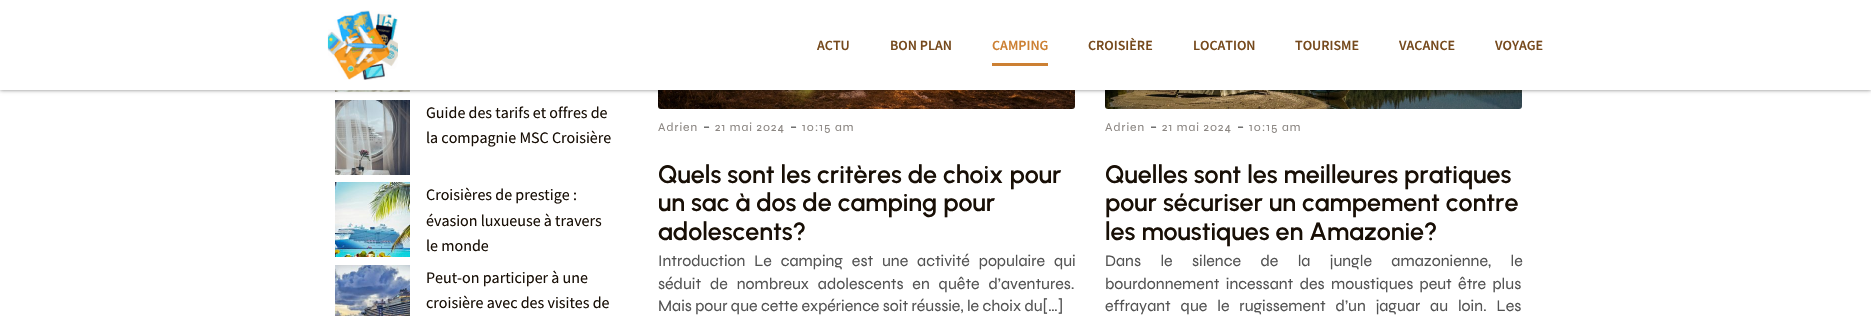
#include "include/core/SkBlurTypes.h"
#include "include/core/SkCanvas.h"
#include "include/core/SkData.h"
#include "include/core/SkFont.h"
#include "include/core/SkFontMgr.h"
#include "include/core/SkImage.h"
#include "include/core/SkMaskFilter.h"
#include "include/core/SkPaint.h"
#include "include/core/SkPathBuilder.h"
#include "include/core/SkTextBlob.h"
#include "include/effects/SkDashPathEffect.h"
#include "include/effects/SkGradientShader.h"
#include "include/utils/SkParsePath.h"

extern sk_sp<SkFontMgr> fontMgr;

void draw(SkCanvas* canvas) {
  SkPaint p;
  p.setAntiAlias(true);
  auto spacedText = [&](const char* s, float x, float y, const SkFont& font, const SkPaint& ink, float letter, float word) {
    std::vector<SkGlyphID> glyphs(font.countText(s, strlen(s), SkTextEncoding::kUTF8));
    std::vector<float> xs(glyphs.size());
    font.textToGlyphs(s, strlen(s), SkTextEncoding::kUTF8, glyphs);
    font.getXPos(glyphs, xs, x);
    float extra = 0;
    for (size_t i = 0; i < glyphs.size(); i++) {
      xs[i] += extra;
      extra += letter + word * (glyphs[i] == font.unicharToGlyph(' '));
    }
    canvas->drawTextBlob(SkTextBlob::MakeFromPosHGlyphs(glyphs, xs, y, font), 0, 0, ink);
  };
  canvas->clear(SK_ColorWHITE);
  canvas->drawImageRect(SkImages::DeferredFromEncodedData(SkData::MakeFromFileName("images/2.png")), SkRect::MakeLTRB(335, 90, 410, 92), SkSamplingOptions());
  canvas->drawImageRect(SkImages::DeferredFromEncodedData(SkData::MakeFromFileName("images/6.png")), SkRect::MakeLTRB(658, 90, 1075, 109), SkSamplingOptions());
  canvas->drawImageRect(SkImages::DeferredFromEncodedData(SkData::MakeFromFileName("images/7.png")), SkRect::MakeLTRB(1105, 90, 1522, 109), SkSamplingOptions());
  p.setColor(SkColorSetARGB(128, 0, 0, 0));
  p.setMaskFilter(SkMaskFilter::MakeBlur(kNormal_SkBlurStyle, 2));
  canvas->drawRect(SkRect::MakeLTRB(0, 0, 1871, 90), p);
  p.setMaskFilter(nullptr);
  p.setColor(SK_ColorWHITE);
  canvas->drawRect(SkRect::MakeLTRB(0, 0, 1871, 90), p);
  canvas->drawImageRect(SkImages::DeferredFromEncodedData(SkData::MakeFromFileName("images/1.png")), SkRect::MakeLTRB(327, 10, 398, 80), SkSamplingOptions());
  p.setColor(SkColorSetRGB(204, 128, 51));
  canvas->drawRect(SkRect::MakeLTRB(992, 63, 1048, 66), p);
  canvas->drawImageRect(SkImages::DeferredFromEncodedData(SkData::MakeFromFileName("images/3.png")), SkRect::MakeLTRB(335, 100, 410, 175), SkSamplingOptions());
  canvas->drawImageRect(SkImages::DeferredFromEncodedData(SkData::MakeFromFileName("images/4.png")), SkRect::MakeLTRB(335, 182, 410, 257), SkSamplingOptions());
  canvas->drawImageRect(SkImages::DeferredFromEncodedData(SkData::MakeFromFileName("images/5.png")), SkRect::MakeLTRB(335, 265, 410, 316), SkSamplingOptions());
  SkFont font1(fontMgr->matchFamilyStyle("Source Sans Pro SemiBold", SkFontStyle(600, SkFontStyle::kNormal_Width, SkFontStyle::kUpright_Slant)), 14);
  font1.setSubpixel(true);
  p.setColor(SkColorSetRGB(118, 74, 29));
  canvas->drawString("ACTU", 817, 50, font1, p);
  canvas->drawString("BON PLAN", 890, 50, font1, p);
  p.setColor(SkColorSetRGB(204, 128, 51));
  canvas->drawString("CAMPING", 992, 50, font1, p);
  p.setColor(SkColorSetRGB(118, 74, 29));
  canvas->drawString("CROISIÈRE", 1088, 50, font1, p);
  canvas->drawString("LOCATION", 1193, 50, font1, p);
  canvas->drawString("TOURISME", 1295, 50, font1, p);
  canvas->drawString("VACANCE", 1399, 50, font1, p);
  canvas->drawString("VOYAGE", 1495, 50, font1, p);
  SkFont font2(fontMgr->matchFamilyStyle("Source Sans Pro", SkFontStyle::Normal()), 16);
  font2.setSubpixel(true);
  p.setColor(SkColorSetRGB(24, 15, 6));
  canvas->drawString("Guide des tarifs et offres de", 426, 118, font2, p);
  canvas->drawString("la compagnie MSC Croisière", 426, 143, font2, p);
  canvas->drawString("Croisières de prestige :", 426, 200, font2, p);
  canvas->drawString("évasion luxueuse à travers", 426, 226, font2, p);
  canvas->drawString("le monde", 426, 251, font2, p);
  canvas->drawString("Peut-on participer à une", 426, 283, font2, p);
  canvas->drawString("croisière avec des visites de", 426, 308, font2, p);
  SkFont font3(fontMgr->matchFamilyStyle("Syne", SkFontStyle::Normal()), 12);
  font3.setSubpixel(true);
  p.setColor(SkColorSetRGB(140, 135, 131));
  spacedText("Adrien", 658, 131, font3, p, 1, 0);
  SkFont font4(fontMgr->matchFamilyStyle("Urbanist", SkFontStyle::Normal()), 16);
  font4.setSubpixel(true);
  p.setColor(SkColorSetRGB(83, 83, 83));
  canvas->drawString("-", 703, 132, font4, p);
  p.setColor(SkColorSetRGB(140, 135, 131));
  spacedText("21 mai 2024", 715, 131, font3, p, 1, 0);
  p.setColor(SkColorSetRGB(83, 83, 83));
  canvas->drawString("-", 790, 132, font4, p);
  p.setColor(SkColorSetRGB(140, 135, 131));
  spacedText("10:15 am", 802, 131, font3, p, 1, 0);
  SkFont font5(fontMgr->matchFamilyStyle("Urbanist", SkFontStyle(600, SkFontStyle::kNormal_Width, SkFontStyle::kUpright_Slant)), 25);
  font5.setSubpixel(true);
  p.setColor(SkColorSetRGB(24, 15, 6));
  canvas->drawString("Quels sont les critères de choix pour", 658, 183, font5, p);
  canvas->drawString("un sac à dos de camping pour", 658, 211, font5, p);
  canvas->drawString("adolescents?", 658, 240, font5, p);
  SkFont font6(fontMgr->matchFamilyStyle("Syne", SkFontStyle::Normal()), 16);
  font6.setSubpixel(true);
  p.setColor(SkColorSetRGB(83, 83, 83));
  spacedText("Introduction Le camping est une activité populaire qui", 658, 266, font6, p, 0, 5.5f);
  spacedText("séduit de nombreux adolescents en quête d’aventures.", 658, 289, font6, p, 0, 5.5f);
  canvas->drawString("Mais pour que cette expérience soit réussie, le choix du[…]", 658, 311, font6, p);
  p.setColor(SkColorSetRGB(140, 135, 131));
  spacedText("Adrien", 1105, 131, font3, p, 1, 0);
  p.setColor(SkColorSetRGB(83, 83, 83));
  canvas->drawString("-", 1150, 132, font4, p);
  p.setColor(SkColorSetRGB(140, 135, 131));
  spacedText("21 mai 2024", 1162, 131, font3, p, 1, 0);
  p.setColor(SkColorSetRGB(83, 83, 83));
  canvas->drawString("-", 1237, 132, font4, p);
  p.setColor(SkColorSetRGB(140, 135, 131));
  spacedText("10:15 am", 1249, 131, font3, p, 1, 0);
  p.setColor(SkColorSetRGB(24, 15, 6));
  canvas->drawString("Quelles sont les meilleures pratiques", 1105, 183, font5, p);
  canvas->drawString("pour sécuriser un campement contre", 1105, 211, font5, p);
  canvas->drawString("les moustiques en Amazonie?", 1105, 240, font5, p);
  p.setColor(SkColorSetRGB(83, 83, 83));
  spacedText("Dans le silence de la jungle amazonienne, le", 1105, 266, font6, p, 0, 16);
  spacedText("bourdonnement incessant des moustiques peut être plus", 1105, 289, font6, p, 0, 3);
  spacedText("effrayant que le rugissement d’un jaguar au loin. Les", 1105, 311, font6, p, 0, 6.5f);
}
